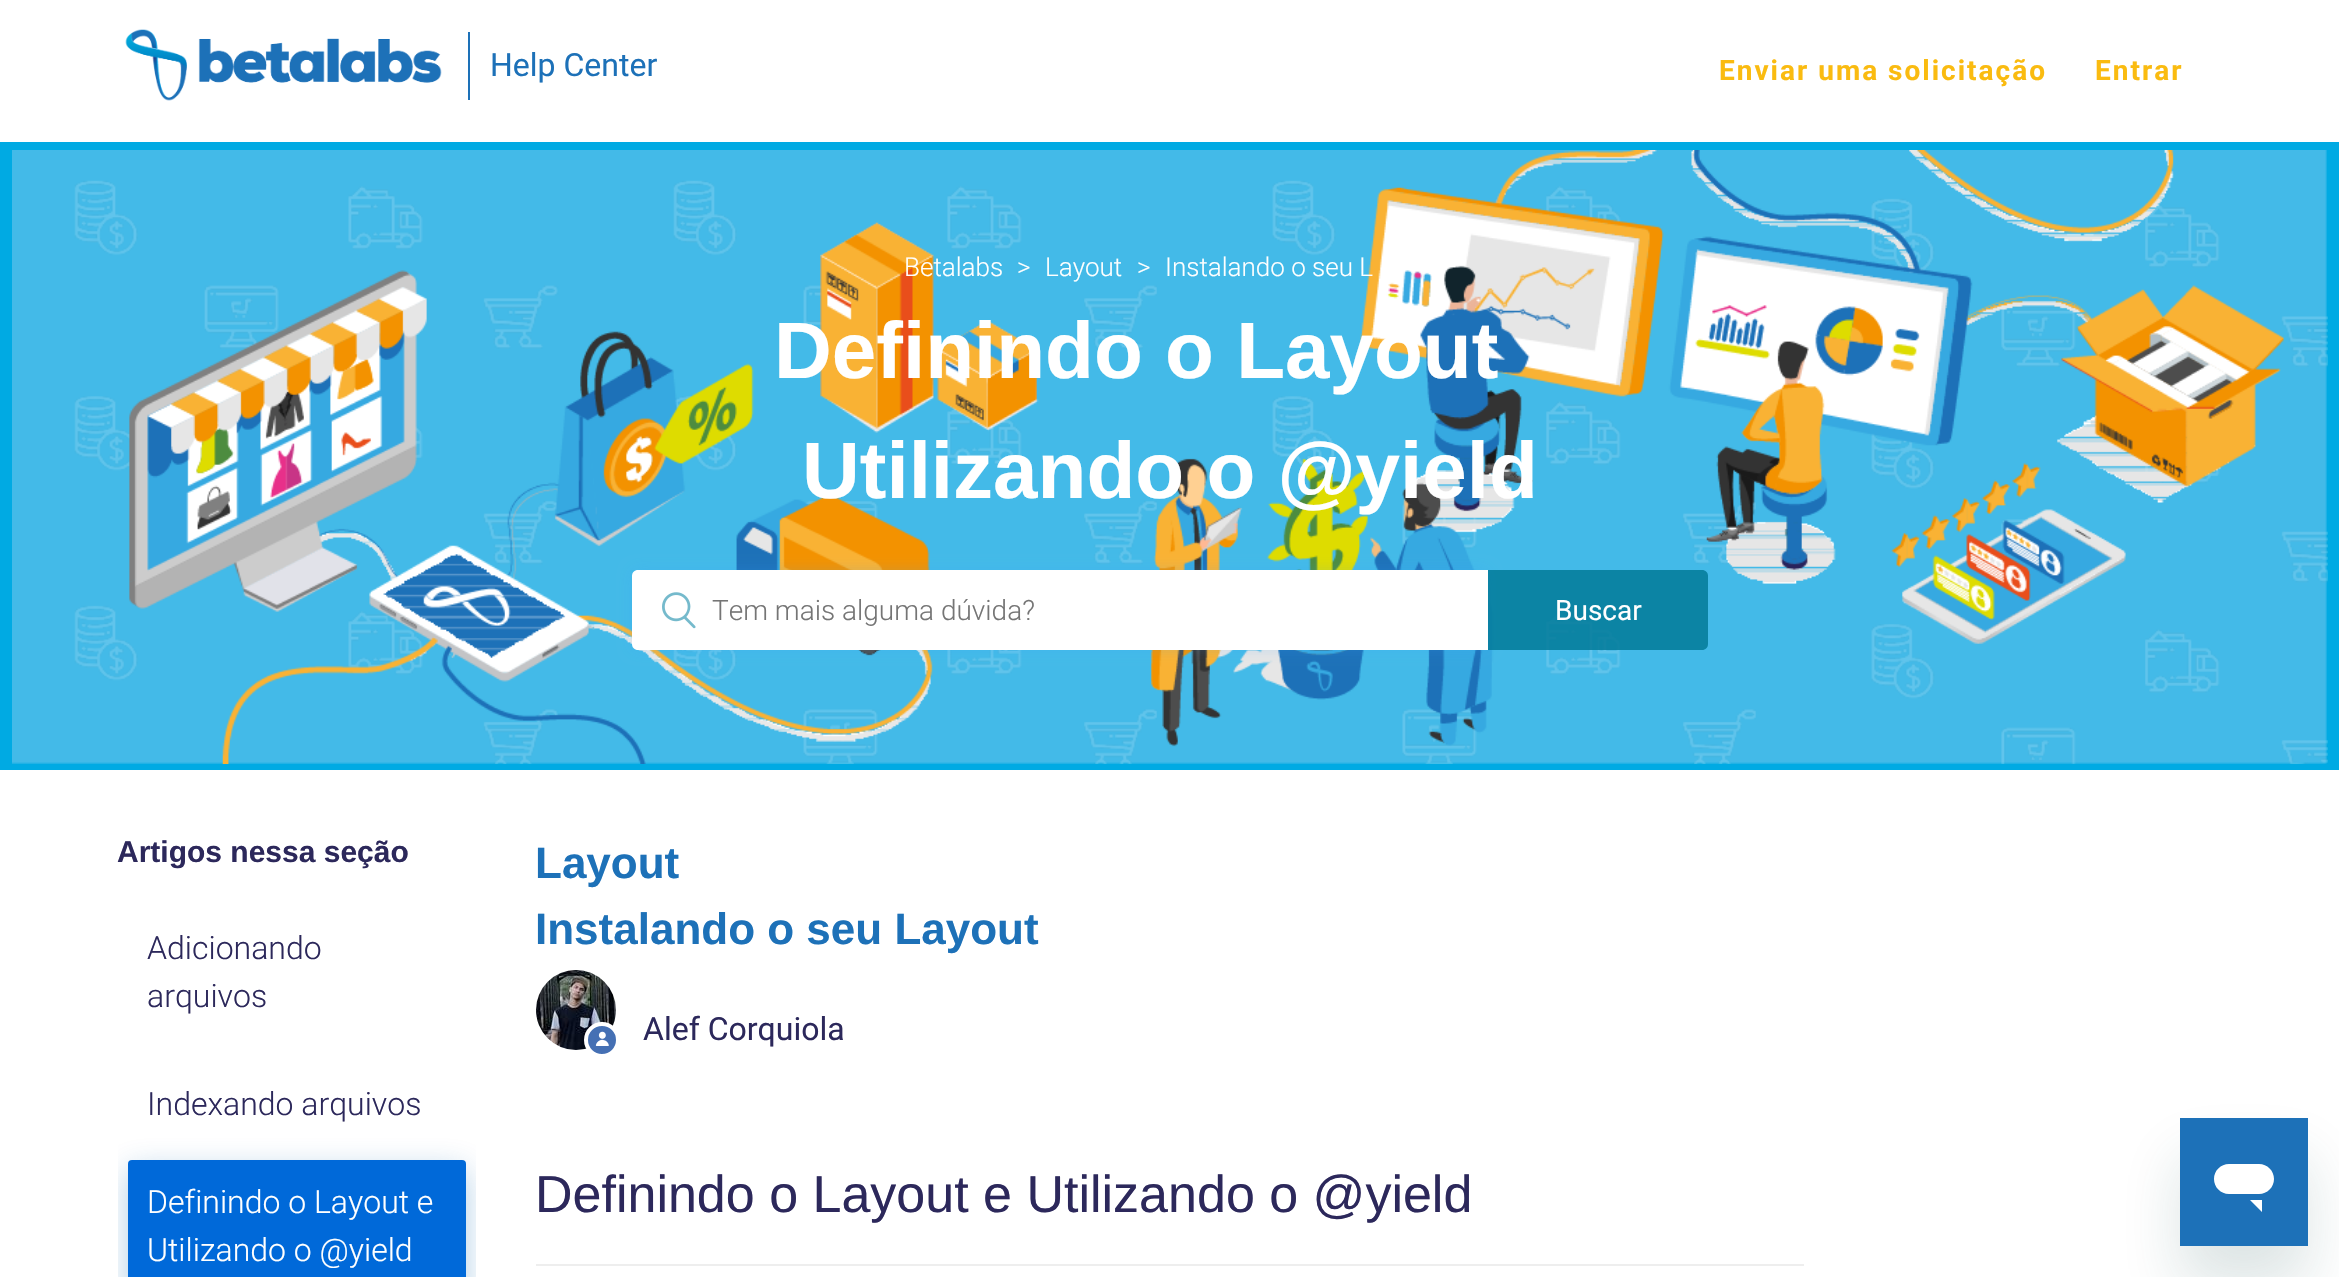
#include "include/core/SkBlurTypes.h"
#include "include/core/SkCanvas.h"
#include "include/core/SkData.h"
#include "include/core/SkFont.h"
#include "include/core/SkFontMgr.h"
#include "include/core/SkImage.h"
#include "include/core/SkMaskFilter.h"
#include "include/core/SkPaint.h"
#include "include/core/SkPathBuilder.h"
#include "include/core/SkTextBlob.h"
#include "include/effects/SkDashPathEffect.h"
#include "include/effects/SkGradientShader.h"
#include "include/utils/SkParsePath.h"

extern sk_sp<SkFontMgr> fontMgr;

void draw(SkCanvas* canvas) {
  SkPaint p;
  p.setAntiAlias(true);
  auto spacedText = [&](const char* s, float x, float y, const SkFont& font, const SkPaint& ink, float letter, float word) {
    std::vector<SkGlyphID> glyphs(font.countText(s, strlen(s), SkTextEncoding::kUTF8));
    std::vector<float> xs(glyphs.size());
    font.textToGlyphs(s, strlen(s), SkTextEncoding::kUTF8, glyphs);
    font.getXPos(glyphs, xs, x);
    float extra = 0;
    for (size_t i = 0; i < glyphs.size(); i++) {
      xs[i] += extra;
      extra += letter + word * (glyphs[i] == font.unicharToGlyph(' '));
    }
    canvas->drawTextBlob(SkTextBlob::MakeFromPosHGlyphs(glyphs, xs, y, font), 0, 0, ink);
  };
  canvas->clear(SK_ColorWHITE);
  canvas->drawImageRect(SkImages::DeferredFromEncodedData(SkData::MakeFromFileName("images/1.png")), SkRect::MakeLTRB(125, 29, 442, 101), SkSamplingOptions());
  p.setColor(SkColorSetRGB(29, 113, 184));
  canvas->drawRect(SkRect::MakeLTRB(468, 32, 470, 100), p);
  p.setColor(SkColorSetRGB(0, 170, 227));
  canvas->drawRect(SkRect::MakeLTRB(0, 142, 2339, 770), p);
  canvas->drawImageRect(SkImages::DeferredFromEncodedData(SkData::MakeFromFileName("images/2.png")), SkRect::MakeLTRB(12, 150, 2328, 764), SkSamplingOptions());
  p.setColor(SkColorSetARGB(48, 54, 162, 253));
  p.setMaskFilter(SkMaskFilter::MakeBlur(kNormal_SkBlurStyle, 7));
  canvas->drawRoundRect(SkRect::MakeLTRB(632, 570, 1488, 650), 6, 6, p);
  p.setMaskFilter(nullptr);
  p.setColor(SK_ColorWHITE);
  canvas->drawPath(SkPathBuilder().moveTo(638, 570).lineTo(1488, 570).lineTo(1488, 650).lineTo(638, 650).cubicTo(634.5f, 650, 632, 647.5f, 632, 644).lineTo(632, 576).cubicTo(632, 572.5f, 634.5f, 570, 638, 570).close().detach(), p);
  canvas->drawImageRect(SkImages::DeferredFromEncodedData(SkData::MakeFromFileName("images/3.png")), SkRect::MakeLTRB(662, 592, 696, 629), SkSamplingOptions());
  p.setColor(SkColorSetARGB(212, 0, 120, 150));
  canvas->drawPath(SkPathBuilder().moveTo(1488, 570).lineTo(1702, 570).cubicTo(1705.5f, 570, 1708, 572.5f, 1708, 576).lineTo(1708, 644).cubicTo(1708, 647.5f, 1705.5f, 650, 1702, 650).lineTo(1488, 650).close().detach(), p);
  canvas->save();
  canvas->clipRect(SkRect::MakeLTRB(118, 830, 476, 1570));
  p.setColor(SkColorSetARGB(79, 8, 99, 175));
  p.setMaskFilter(SkMaskFilter::MakeBlur(kNormal_SkBlurStyle, 16));
  canvas->drawRoundRect(SkRect::MakeLTRB(128, 1170, 466, 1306), 4, 4, p);
  p.setMaskFilter(nullptr);
  canvas->restore();
  p.setColor(SkColorSetRGB(0, 105, 217));
  canvas->drawRoundRect(SkRect::MakeLTRB(128, 1160, 466, 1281), 4, 4, p);
  canvas->drawImageRect(SkImages::DeferredFromEncodedData(SkData::MakeFromFileName("images/4.png")), SkRect::MakeLTRB(536, 970, 616, 1050), SkSamplingOptions());
  p.setColor(SkColorSetRGB(69, 112, 180));
  canvas->drawCircle(602, 1040, 16, p);
  p.setStyle(SkPaint::kStroke_Style);
  p.setStrokeWidth(4);
  p.setColor(SK_ColorWHITE);
  canvas->drawCircle(602, 1040, 16, p);
  canvas->drawImageRect(SkImages::DeferredFromEncodedData(SkData::MakeFromFileName("images/5.png")), SkRect::MakeLTRB(595, 1031, 609, 1046), SkSamplingOptions());
  p.setStyle(SkPaint::kFill_Style);
  p.setColor(SkColorSetRGB(238, 238, 238));
  canvas->drawRect(SkRect::MakeLTRB(536, 1264, 1804, 1266), p);
  p.setColor(SkColorSetARGB(38, 23, 73, 77));
  p.setMaskFilter(SkMaskFilter::MakeBlur(kNormal_SkBlurStyle, 30));
  canvas->drawRect(SkRect::MakeLTRB(2180, 1158, 2308, 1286), p);
  p.setMaskFilter(nullptr);
  canvas->drawImageRect(SkImages::DeferredFromEncodedData(SkData::MakeFromFileName("images/6.png")), SkRect::MakeLTRB(2180, 1118, 2308, 1246), SkSamplingOptions());
  SkFont font1(fontMgr->matchFamilyStyle("Roboto", SkFontStyle::Normal()), 32);
  font1.setSubpixel(true);
  p.setColor(SkColorSetRGB(29, 113, 184));
  canvas->drawString("Help Center", 490, 76, font1, p);
  SkFont font2(fontMgr->matchFamilyStyle("Roboto", SkFontStyle::Bold()), 28);
  font2.setSubpixel(true);
  p.setColor(SkColorSetRGB(250, 187, 16));
  spacedText("Enviar uma solicitação", 1719, 80, font2, p, 2, 0);
  spacedText("Entrar", 2095, 80, font2, p, 2, 0);
  SkFont font3(fontMgr->matchFamilyStyle("Roboto", SkFontStyle(300, SkFontStyle::kNormal_Width, SkFontStyle::kUpright_Slant)), 26);
  font3.setSubpixel(true);
  p.setColor(SK_ColorWHITE);
  canvas->drawString("Betalabs", 904, 276, font3, p);
  canvas->drawString(">", 1017, 276, font3, p);
  canvas->drawString("Layout", 1045, 276, font3, p);
  canvas->drawString(">", 1137, 276, font3, p);
  canvas->drawString("Instalando o seu L", 1165, 276, font3, p);
  SkFont font4(fontMgr->matchFamilyStyle("Liberation Sans", SkFontStyle::Bold()), 80);
  font4.setSubpixel(true);
  canvas->drawString("Definindo o Layout", 774, 378, font4, p);
  canvas->drawString("Utilizando o @yield", 802, 498, font4, p);
  SkFont font5(fontMgr->matchFamilyStyle("Roboto", SkFontStyle(300, SkFontStyle::kNormal_Width, SkFontStyle::kUpright_Slant)), 28);
  font5.setSubpixel(true);
  p.setColor(SkColorSetRGB(117, 117, 117));
  canvas->drawString("Tem mais alguma dúvida?", 712, 620, font5, p);
  SkFont font6(fontMgr->matchFamilyStyle("Roboto", SkFontStyle::Normal()), 28);
  font6.setSubpixel(true);
  p.setColor(SK_ColorWHITE);
  canvas->drawString("Buscar", 1555, 620, font6, p);
  SkFont font7(fontMgr->matchFamilyStyle("Liberation Sans", SkFontStyle::Bold()), 30);
  font7.setSubpixel(true);
  p.setColor(SkColorSetRGB(44, 40, 91));
  canvas->drawString("Artigos nessa seção", 117, 862, font7, p);
  SkFont font8(fontMgr->matchFamilyStyle("Roboto", SkFontStyle(300, SkFontStyle::kNormal_Width, SkFontStyle::kUpright_Slant)), 32);
  font8.setSubpixel(true);
  canvas->drawString("Adicionando", 147, 959, font8, p);
  canvas->drawString("arquivos", 147, 1007, font8, p);
  canvas->drawString("Indexando arquivos", 147, 1115, font8, p);
  p.setColor(SK_ColorWHITE);
  canvas->drawString("Definindo o Layout e", 147, 1213, font8, p);
  canvas->drawString("Utilizando o @yield", 147, 1261, font8, p);
  SkFont font9(fontMgr->matchFamilyStyle("Liberation Sans", SkFontStyle::Bold()), 44);
  font9.setSubpixel(true);
  p.setColor(SkColorSetRGB(29, 113, 184));
  canvas->drawString("Layout", 535, 878, font9, p);
  canvas->drawString("Instalando o seu Layout", 535, 944, font9, p);
  p.setColor(SkColorSetRGB(44, 40, 91));
  canvas->drawString("Alef Corquiola", 643, 1040, font1, p);
  SkFont font10(fontMgr->matchFamilyStyle("Liberation Sans", SkFontStyle::Normal()), 52);
  font10.setSubpixel(true);
  canvas->drawString("Definindo o Layout e Utilizando o @yield", 535, 1212, font10, p);
}
